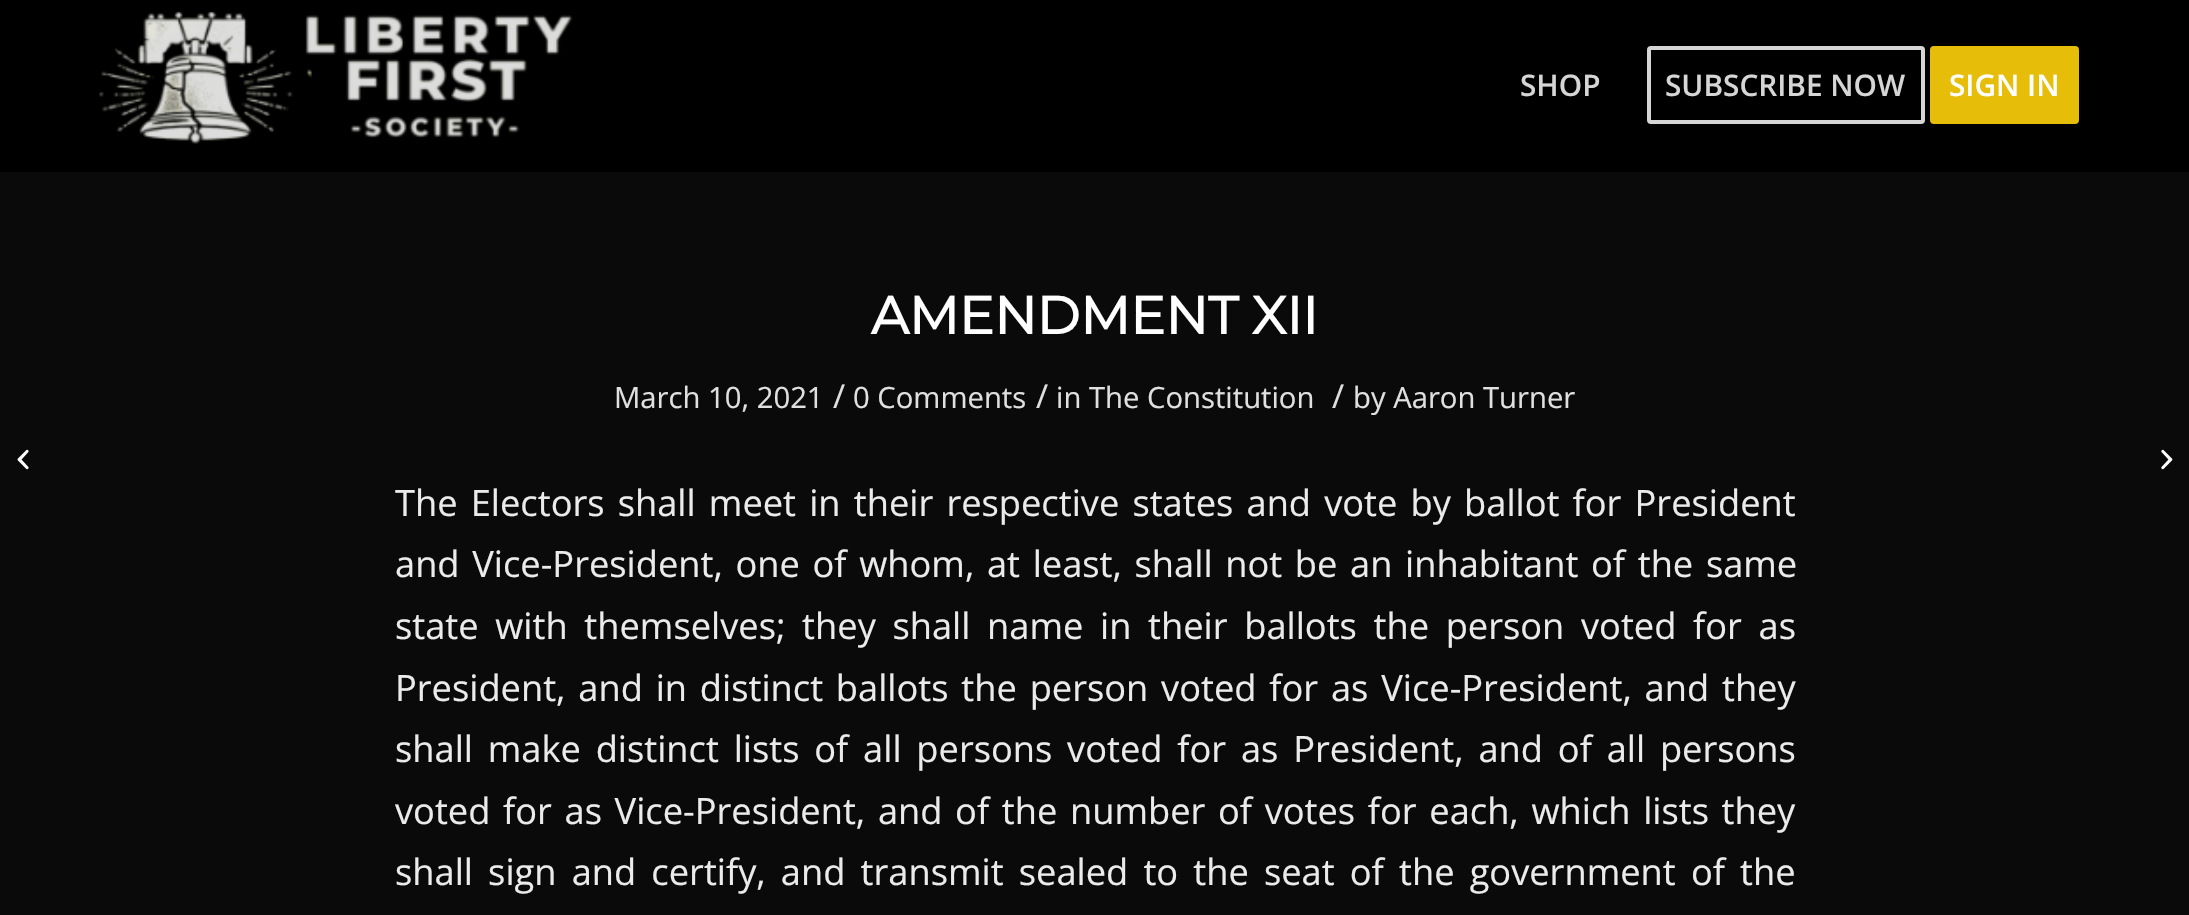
#include "include/core/SkBlurTypes.h"
#include "include/core/SkCanvas.h"
#include "include/core/SkData.h"
#include "include/core/SkFont.h"
#include "include/core/SkFontMgr.h"
#include "include/core/SkImage.h"
#include "include/core/SkMaskFilter.h"
#include "include/core/SkPaint.h"
#include "include/core/SkPathBuilder.h"
#include "include/core/SkTextBlob.h"
#include "include/effects/SkDashPathEffect.h"
#include "include/effects/SkGradientShader.h"
#include "include/utils/SkParsePath.h"

extern sk_sp<SkFontMgr> fontMgr;

void draw(SkCanvas* canvas) {
  SkPaint p;
  p.setAntiAlias(true);
  auto spacedText = [&](const char* s, float x, float y, const SkFont& font, const SkPaint& ink, float letter, float word) {
    std::vector<SkGlyphID> glyphs(font.countText(s, strlen(s), SkTextEncoding::kUTF8));
    std::vector<float> xs(glyphs.size());
    font.textToGlyphs(s, strlen(s), SkTextEncoding::kUTF8, glyphs);
    font.getXPos(glyphs, xs, x);
    float extra = 0;
    for (size_t i = 0; i < glyphs.size(); i++) {
      xs[i] += extra;
      extra += letter + word * (glyphs[i] == font.unicharToGlyph(' '));
    }
    canvas->drawTextBlob(SkTextBlob::MakeFromPosHGlyphs(glyphs, xs, y, font), 0, 0, ink);
  };
  canvas->clear(SkColorSetRGB(10, 10, 10));
  p.setColor(SK_ColorBLACK);
  canvas->drawRect(SkRect::MakeLTRB(0, 0, 2189, 172), p);
  canvas->drawImageRect(SkImages::DeferredFromEncodedData(SkData::MakeFromFileName("images/1.png")), SkRect::MakeLTRB(99, 11, 573, 144), SkSamplingOptions());
  p.setStyle(SkPaint::kStroke_Style);
  p.setStrokeWidth(4);
  p.setColor(SkColorSetRGB(214, 214, 214));
  canvas->drawRoundRect(SkRect::MakeLTRB(1649, 48, 1923, 122), 2, 2, p);
  p.setStyle(SkPaint::kFill_Style);
  p.setColor(SkColorSetRGB(230, 189, 9));
  canvas->drawRoundRect(SkRect::MakeLTRB(1932, 48, 2077, 122), 2, 2, p);
  p.setStyle(SkPaint::kStroke_Style);
  canvas->drawRoundRect(SkRect::MakeLTRB(1932, 48, 2077, 122), 2, 2, p);
  canvas->drawImageRect(SkImages::DeferredFromEncodedData(SkData::MakeFromFileName("images/2.png")), SkRect::MakeLTRB(17, 449, 29, 470), SkSamplingOptions());
  canvas->drawImageRect(SkImages::DeferredFromEncodedData(SkData::MakeFromFileName("images/3.png")), SkRect::MakeLTRB(2161, 449, 2173, 470), SkSamplingOptions());
  SkFont font1(fontMgr->matchFamilyStyle("Open Sans", SkFontStyle(600, SkFontStyle::kNormal_Width, SkFontStyle::kUpright_Slant)), 29.75f);
  font1.setSubpixel(true);
  p.setStyle(SkPaint::kFill_Style);
  p.setColor(SkColorSetRGB(214, 214, 214));
  canvas->drawString("SHOP", 1520, 96, font1, p);
  canvas->drawString("SUBSCRIBE NOW", 1665, 96, font1, p);
  p.setColor(SK_ColorWHITE);
  canvas->drawString("SIGN IN", 1949, 96, font1, p);
  SkFont font2(fontMgr->matchFamilyStyle("Montserrat", SkFontStyle::Bold()), 52.5f);
  font2.setSubpixel(true);
  canvas->drawString("AMENDMENT XII", 871, 334, font2, p);
  SkFont font3(fontMgr->matchFamilyStyle("Open Sans", SkFontStyle::Normal()), 29.25f);
  font3.setSubpixel(true);
  p.setColor(SkColorSetRGB(224, 224, 224));
  canvas->drawString("March 10, 2021", 614, 408, font3, p);
  SkFont font4(fontMgr->matchFamilyStyle("Open Sans", SkFontStyle::Normal()), 33);
  font4.setSubpixel(true);
  canvas->drawString("/", 833, 408, font4, p);
  canvas->drawString("0 Comments", 853, 408, font3, p);
  canvas->drawString("/", 1036, 408, font4, p);
  canvas->drawString("in The Constitution", 1056, 408, font3, p);
  canvas->drawString("/", 1332, 408, font4, p);
  canvas->drawString("by Aaron Turner", 1353, 408, font3, p);
  SkFont font5(fontMgr->matchFamilyStyle("Open Sans", SkFontStyle::Normal()), 36.25f);
  font5.setSubpixel(true);
  p.setColor(SkColorSetRGB(235, 235, 235));
  spacedText("The Electors shall meet in their respective states and vote by ballot for President", 395, 516, font5, p, 0, 3.75f);
  spacedText("and Vice-President, one of whom, at least, shall not be an inhabitant of the same", 395, 577, font5, p, 0, 3.25f);
  spacedText("state with themselves; they shall name in their ballots the person voted for as", 395, 639, font5, p, 0, 7.25f);
  spacedText("President, and in distinct ballots the person voted for as Vice-President, and they", 395, 701, font5, p, 0, 3.4f);
  spacedText("shall make distinct lists of all persons voted for as President, and of all persons", 395, 762, font5, p, 0, 5.4f);
  spacedText("voted for as Vice-President, and of the number of votes for each, which lists they", 395, 824, font5, p, 0, 3.25f);
  spacedText("shall sign and certify, and transmit sealed to the seat of the government of the", 395, 885, font5, p, 0, 5.75f);
}
